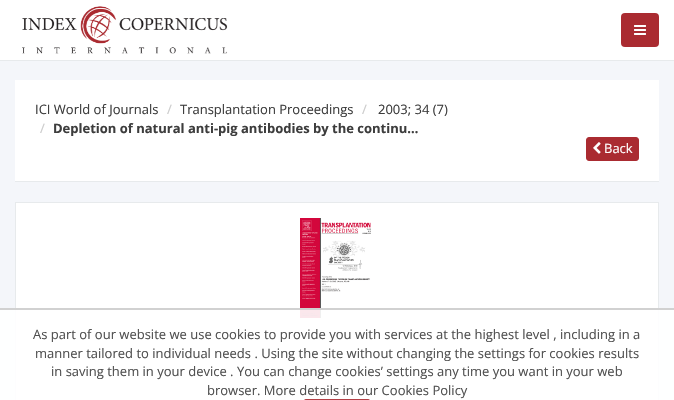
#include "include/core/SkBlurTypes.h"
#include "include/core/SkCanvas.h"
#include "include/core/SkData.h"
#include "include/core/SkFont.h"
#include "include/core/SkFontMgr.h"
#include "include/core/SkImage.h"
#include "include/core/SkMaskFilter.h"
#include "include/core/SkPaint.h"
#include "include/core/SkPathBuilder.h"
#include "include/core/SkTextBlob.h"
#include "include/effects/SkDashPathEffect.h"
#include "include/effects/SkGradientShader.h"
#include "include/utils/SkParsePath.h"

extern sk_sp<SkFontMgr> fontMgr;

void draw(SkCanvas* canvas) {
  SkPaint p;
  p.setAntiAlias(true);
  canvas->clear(SkColorSetRGB(244, 246, 250));
  p.setColor(SK_ColorWHITE);
  canvas->drawRect(SkRect::MakeLTRB(0, 0, 674, 60), p);
  p.setColor(SkColorSetRGB(231, 234, 236));
  canvas->drawRect(SkRect::MakeLTRB(0, 60, 674, 61), p);
  canvas->drawImageRect(SkImages::DeferredFromEncodedData(SkData::MakeFromFileName("images/1.png")), SkRect::MakeLTRB(22, 6, 228, 54), SkSamplingOptions());
  p.setColor(SkColorSetRGB(170, 43, 49));
  canvas->drawRoundRect(SkRect::MakeLTRB(621, 13, 659, 47), 4, 4, p);
  canvas->drawImageRect(SkImages::DeferredFromEncodedData(SkData::MakeFromFileName("images/2.png")), SkRect::MakeLTRB(634, 25, 646, 35), SkSamplingOptions());
  p.setColor(SK_ColorWHITE);
  canvas->drawRect(SkRect::MakeLTRB(15, 80, 659, 181), p);
  p.setColor(SkColorSetRGB(231, 234, 236));
  canvas->drawRect(SkRect::MakeLTRB(15, 181, 659, 182), p);
  p.setColor(SkColorSetRGB(170, 43, 49));
  canvas->drawRoundRect(SkRect::MakeLTRB(586.5f, 137.5f, 638.5f, 160.5f), 2.5f, 2.5f, p);
  p.setStyle(SkPaint::kStroke_Style);
  p.setStrokeWidth(1);
  canvas->drawRoundRect(SkRect::MakeLTRB(586.5f, 137.5f, 638.5f, 160.5f), 2.5f, 2.5f, p);
  canvas->drawImageRect(SkImages::DeferredFromEncodedData(SkData::MakeFromFileName("images/3.png")), SkRect::MakeLTRB(593, 142, 601, 154), SkSamplingOptions());
  p.setStyle(SkPaint::kFill_Style);
  p.setColor(SK_ColorWHITE);
  canvas->drawRect(SkRect::MakeLTRB(15.5f, 202.5f, 658.5f, 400.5f), p);
  p.setStyle(SkPaint::kStroke_Style);
  p.setColor(SkColorSetRGB(231, 234, 236));
  canvas->drawRect(SkRect::MakeLTRB(15.5f, 202.5f, 658.5f, 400.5f), p);
  canvas->drawImageRect(SkImages::DeferredFromEncodedData(SkData::MakeFromFileName("images/4.png")), SkRect::MakeLTRB(300, 218, 371, 318), SkSamplingOptions());
  p.setStyle(SkPaint::kFill_Style);
  p.setColor(SkColorSetARGB(230, 255, 255, 255));
  canvas->drawRect(SkRect::MakeLTRB(0, 308, 674, 400), p);
  p.setColor(SkColorSetARGB(230, 204, 204, 204));
  canvas->drawRect(SkRect::MakeLTRB(0, 308, 674, 310), p);
  p.setColor(SkColorSetRGB(179, 64, 70));
  canvas->drawRoundRect(SkRect::MakeLTRB(304, 399, 370, 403), 3, 3, p);
  SkFont font1(fontMgr->matchFamilyStyle("Open Sans", SkFontStyle::Normal()), 13);
  font1.setSubpixel(true);
  p.setColor(SkColorSetRGB(61, 61, 61));
  canvas->drawString("ICI World of Journals", 35, 114, font1, p);
  p.setColor(SkColorSetRGB(204, 204, 204));
  canvas->drawString("/", 167, 114, font1, p);
  p.setColor(SkColorSetRGB(61, 61, 61));
  canvas->drawString("Transplantation Proceedings", 180, 114, font1, p);
  p.setColor(SkColorSetRGB(204, 204, 204));
  canvas->drawString("/", 362, 114, font1, p);
  p.setColor(SkColorSetRGB(61, 61, 61));
  canvas->drawString("2003; 34 (7)", 378, 114, font1, p);
  p.setColor(SkColorSetRGB(204, 204, 204));
  canvas->drawString("/", 40, 133, font1, p);
  SkFont font2(fontMgr->matchFamilyStyle("Open Sans", SkFontStyle::Bold()), 13);
  font2.setSubpixel(true);
  p.setColor(SkColorSetRGB(61, 61, 61));
  canvas->drawString("Depletion of natural anti-pig antibodies by the continu…", 53, 133, font2, p);
  p.setColor(SK_ColorWHITE);
  canvas->drawString("Back", 604, 153, font1, p);
  p.setColor(SkColorSetRGB(80, 80, 80));
  canvas->drawString("As part of our website we use cookies to provide you with services at the highest level , including in a", 33, 339, font1, p);
  canvas->drawString("manner tailored to individual needs . Using the site without changing the settings for cookies results", 35, 358, font1, p);
  canvas->drawString("in saving them in your device . You can change cookies’ settings any time you want in your web", 51, 376, font1, p);
  canvas->drawString("browser. More details in our Cookies Policy", 207, 395, font1, p);
}
